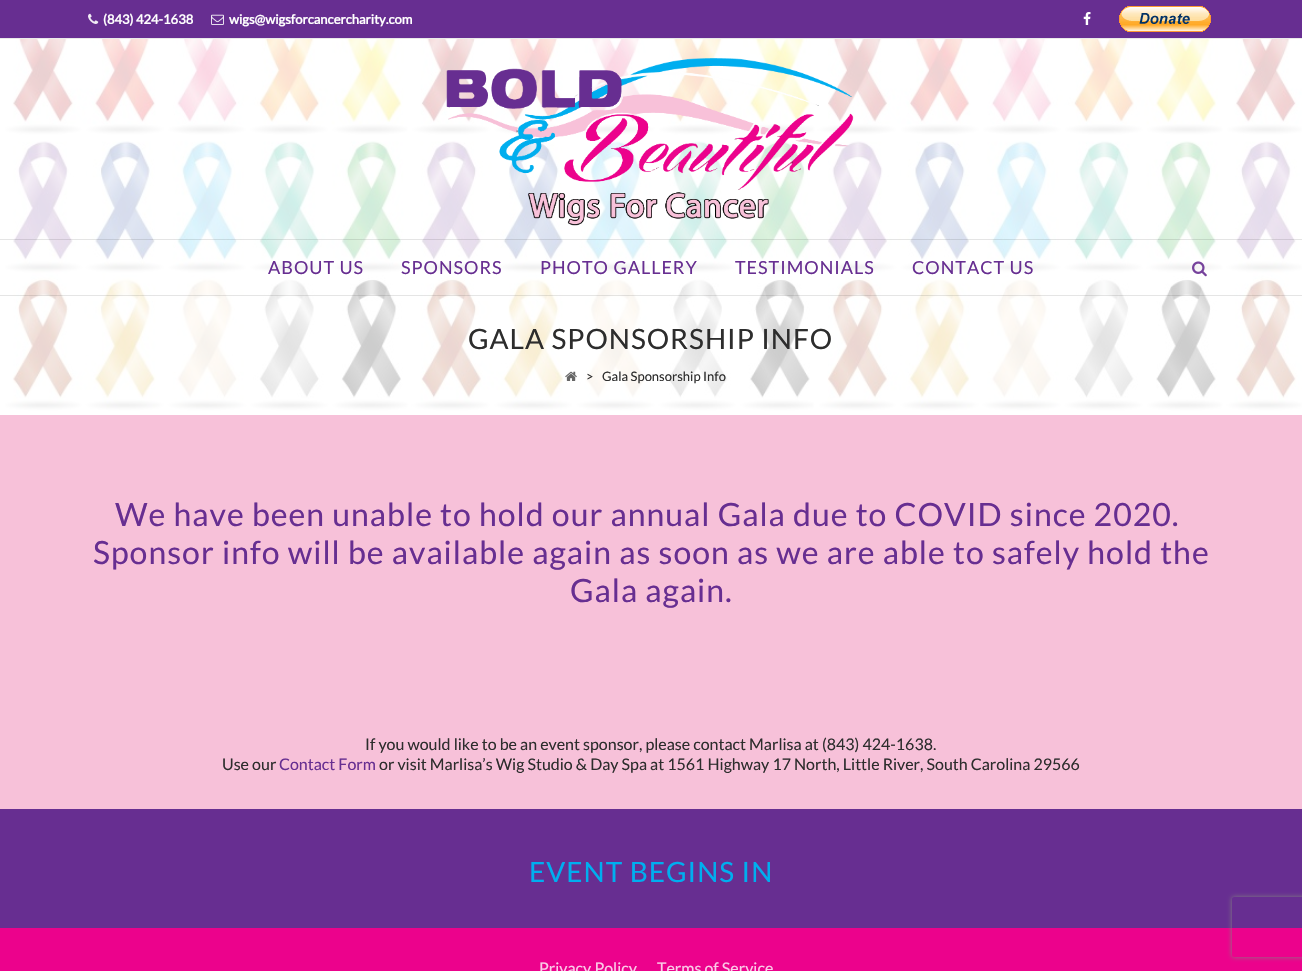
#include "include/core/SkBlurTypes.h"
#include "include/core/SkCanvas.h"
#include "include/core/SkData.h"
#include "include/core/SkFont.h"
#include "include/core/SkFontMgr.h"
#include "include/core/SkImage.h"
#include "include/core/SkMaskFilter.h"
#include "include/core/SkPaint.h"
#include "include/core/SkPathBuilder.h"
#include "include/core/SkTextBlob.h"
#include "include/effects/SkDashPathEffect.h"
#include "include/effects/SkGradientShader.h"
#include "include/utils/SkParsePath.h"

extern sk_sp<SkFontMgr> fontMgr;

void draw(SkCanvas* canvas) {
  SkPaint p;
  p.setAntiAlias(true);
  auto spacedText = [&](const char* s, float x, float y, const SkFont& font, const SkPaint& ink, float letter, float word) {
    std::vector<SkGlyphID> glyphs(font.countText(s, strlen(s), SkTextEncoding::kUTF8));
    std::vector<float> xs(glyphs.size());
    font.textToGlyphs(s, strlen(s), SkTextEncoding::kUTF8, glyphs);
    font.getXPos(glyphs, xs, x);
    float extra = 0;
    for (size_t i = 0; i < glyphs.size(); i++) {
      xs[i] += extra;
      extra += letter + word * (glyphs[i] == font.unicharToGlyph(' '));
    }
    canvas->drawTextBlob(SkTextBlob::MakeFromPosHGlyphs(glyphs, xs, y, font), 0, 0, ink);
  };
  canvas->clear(SkColorSetRGB(103, 46, 145));
  p.setColor(SkColorSetRGB(234, 234, 234));
  canvas->drawRect(SkRect::MakeLTRB(0, 38, 1302, 39), p);
  canvas->drawImageRect(SkImages::DeferredFromEncodedData(SkData::MakeFromFileName("images/1.png")), SkRect::MakeLTRB(88, 13, 99, 24), SkSamplingOptions());
  canvas->drawImageRect(SkImages::DeferredFromEncodedData(SkData::MakeFromFileName("images/2.png")), SkRect::MakeLTRB(211, 14, 224, 25), SkSamplingOptions());
  canvas->drawImageRect(SkImages::DeferredFromEncodedData(SkData::MakeFromFileName("images/3.png")), SkRect::MakeLTRB(1083, 12, 1091, 25), SkSamplingOptions());
  canvas->drawImageRect(SkImages::DeferredFromEncodedData(SkData::MakeFromFileName("images/4.png")), SkRect::MakeLTRB(1119, 6, 1211, 32), SkSamplingOptions());
  p.setColor(SK_ColorWHITE);
  canvas->drawRect(SkRect::MakeLTRB(0, 39, 1302, 415), p);
  canvas->drawImageRect(SkImages::DeferredFromEncodedData(SkData::MakeFromFileName("images/7.png")), SkRect::MakeLTRB(5, 39, 1302, 411), SkSamplingOptions());
  canvas->drawImageRect(SkImages::DeferredFromEncodedData(SkData::MakeFromFileName("images/5.png")), SkRect::MakeLTRB(446, 58, 854, 226), SkSamplingOptions());
  p.setColor(SkColorSetARGB(26, 0, 0, 0));
  canvas->drawRect(SkRect::MakeLTRB(0, 239, 1302, 240), p);
  canvas->drawRect(SkRect::MakeLTRB(0, 295, 1302, 296), p);
  canvas->drawImageRect(SkImages::DeferredFromEncodedData(SkData::MakeFromFileName("images/6.png")), SkRect::MakeLTRB(1192, 261, 1207, 277), SkSamplingOptions());
  canvas->drawImageRect(SkImages::DeferredFromEncodedData(SkData::MakeFromFileName("images/8.png")), SkRect::MakeLTRB(565, 371, 577, 381), SkSamplingOptions());
  p.setColor(SkColorSetRGB(247, 193, 217));
  canvas->drawRect(SkRect::MakeLTRB(0, 415, 1302, 809), p);
  p.setColor(SkColorSetRGB(236, 2, 140));
  canvas->drawRect(SkRect::MakeLTRB(0, 928, 1302, 971), p);
  canvas->save();
  canvas->clipPath(SkPathBuilder(SkPathFillType::kEvenOdd).moveTo(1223, 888).lineTo(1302, 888).lineTo(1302, 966).lineTo(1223, 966).close().moveTo(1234, 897).lineTo(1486, 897).cubicTo(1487, 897, 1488, 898, 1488, 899).lineTo(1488, 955).cubicTo(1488, 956, 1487, 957, 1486, 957).lineTo(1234, 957).cubicTo(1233, 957, 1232, 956, 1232, 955).lineTo(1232, 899).cubicTo(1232, 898, 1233, 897, 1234, 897).close().detach(), true);
  p.setColor(SkColorSetRGB(128, 128, 128));
  p.setMaskFilter(SkMaskFilter::MakeBlur(kNormal_SkBlurStyle, 2.5f));
  canvas->drawRoundRect(SkRect::MakeLTRB(1232, 897, 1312, 957), 2, 2, p);
  p.setMaskFilter(nullptr);
  canvas->restore();
  SkFont font1(fontMgr->matchFamilyStyle("Lato", SkFontStyle::Bold()), 13);
  font1.setSubpixel(true);
  p.setColor(SK_ColorWHITE);
  canvas->drawString("(843) 424-1638", 103, 24, font1, p);
  canvas->drawString("wigs@wigsforcancercharity.com", 229, 24, font1, p);
  SkFont font2(fontMgr->matchFamilyStyle("Lato", SkFontStyle::Normal()), 18);
  font2.setSubpixel(true);
  p.setColor(SkColorSetRGB(103, 46, 145));
  spacedText("ABOUT US", 268, 274, font2, p, 1, 0);
  spacedText("SPONSORS", 401, 274, font2, p, 1, 0);
  spacedText("PHOTO GALLERY", 540, 274, font2, p, 1, 0);
  spacedText("TESTIMONIALS", 735, 274, font2, p, 1, 0);
  spacedText("CONTACT US", 912, 274, font2, p, 1, 0);
  SkFont font3(fontMgr->matchFamilyStyle("Lato", SkFontStyle::Normal()), 28);
  font3.setSubpixel(true);
  p.setColor(SkColorSetRGB(45, 45, 45));
  spacedText("GALA SPONSORSHIP INFO", 468, 349, font3, p, 1, 0);
  SkFont font4(fontMgr->matchFamilyStyle("Lato", SkFontStyle::Normal()), 13);
  font4.setSubpixel(true);
  canvas->drawString(">", 586, 381, font4, p);
  canvas->drawString("Gala Sponsorship Info", 602, 381, font4, p);
  SkFont font5(fontMgr->matchFamilyStyle("Lato", SkFontStyle::Normal()), 32);
  font5.setSubpixel(true);
  p.setColor(SkColorSetRGB(103, 46, 145));
  spacedText("We have been unable to hold our annual Gala due to COVID since 2020.", 115, 526, font5, p, 1, 0);
  spacedText("Sponsor info will be available again as soon as we are able to safely hold the", 93, 564, font5, p, 1, 0);
  spacedText("Gala again.", 570, 602, font5, p, 1, 0);
  SkFont font6(fontMgr->matchFamilyStyle("Lato", SkFontStyle::Normal()), 16);
  font6.setSubpixel(true);
  p.setColor(SkColorSetRGB(45, 45, 45));
  canvas->drawString("If you would like to be an event sponsor, please contact Marlisa at (843) 424-1638.", 365, 750, font6, p);
  canvas->drawString("Use our", 222, 770, font6, p);
  p.setColor(SkColorSetRGB(103, 46, 145));
  canvas->drawString("Contact Form", 279, 770, font6, p);
  p.setColor(SkColorSetRGB(45, 45, 45));
  canvas->drawString("or visit Marlisa’s Wig Studio & Day Spa at 1561 Highway 17 North, Little River, South Carolina 29566", 379, 770, font6, p);
  p.setColor(SkColorSetRGB(0, 174, 239));
  spacedText("EVENT BEGINS IN", 529, 882, font3, p, 1, 0);
  p.setColor(SkColorSetRGB(251, 204, 232));
  canvas->drawString("Privacy Policy", 539, 974, font6, p);
  canvas->drawString("Terms of Service", 657, 974, font6, p);
}
